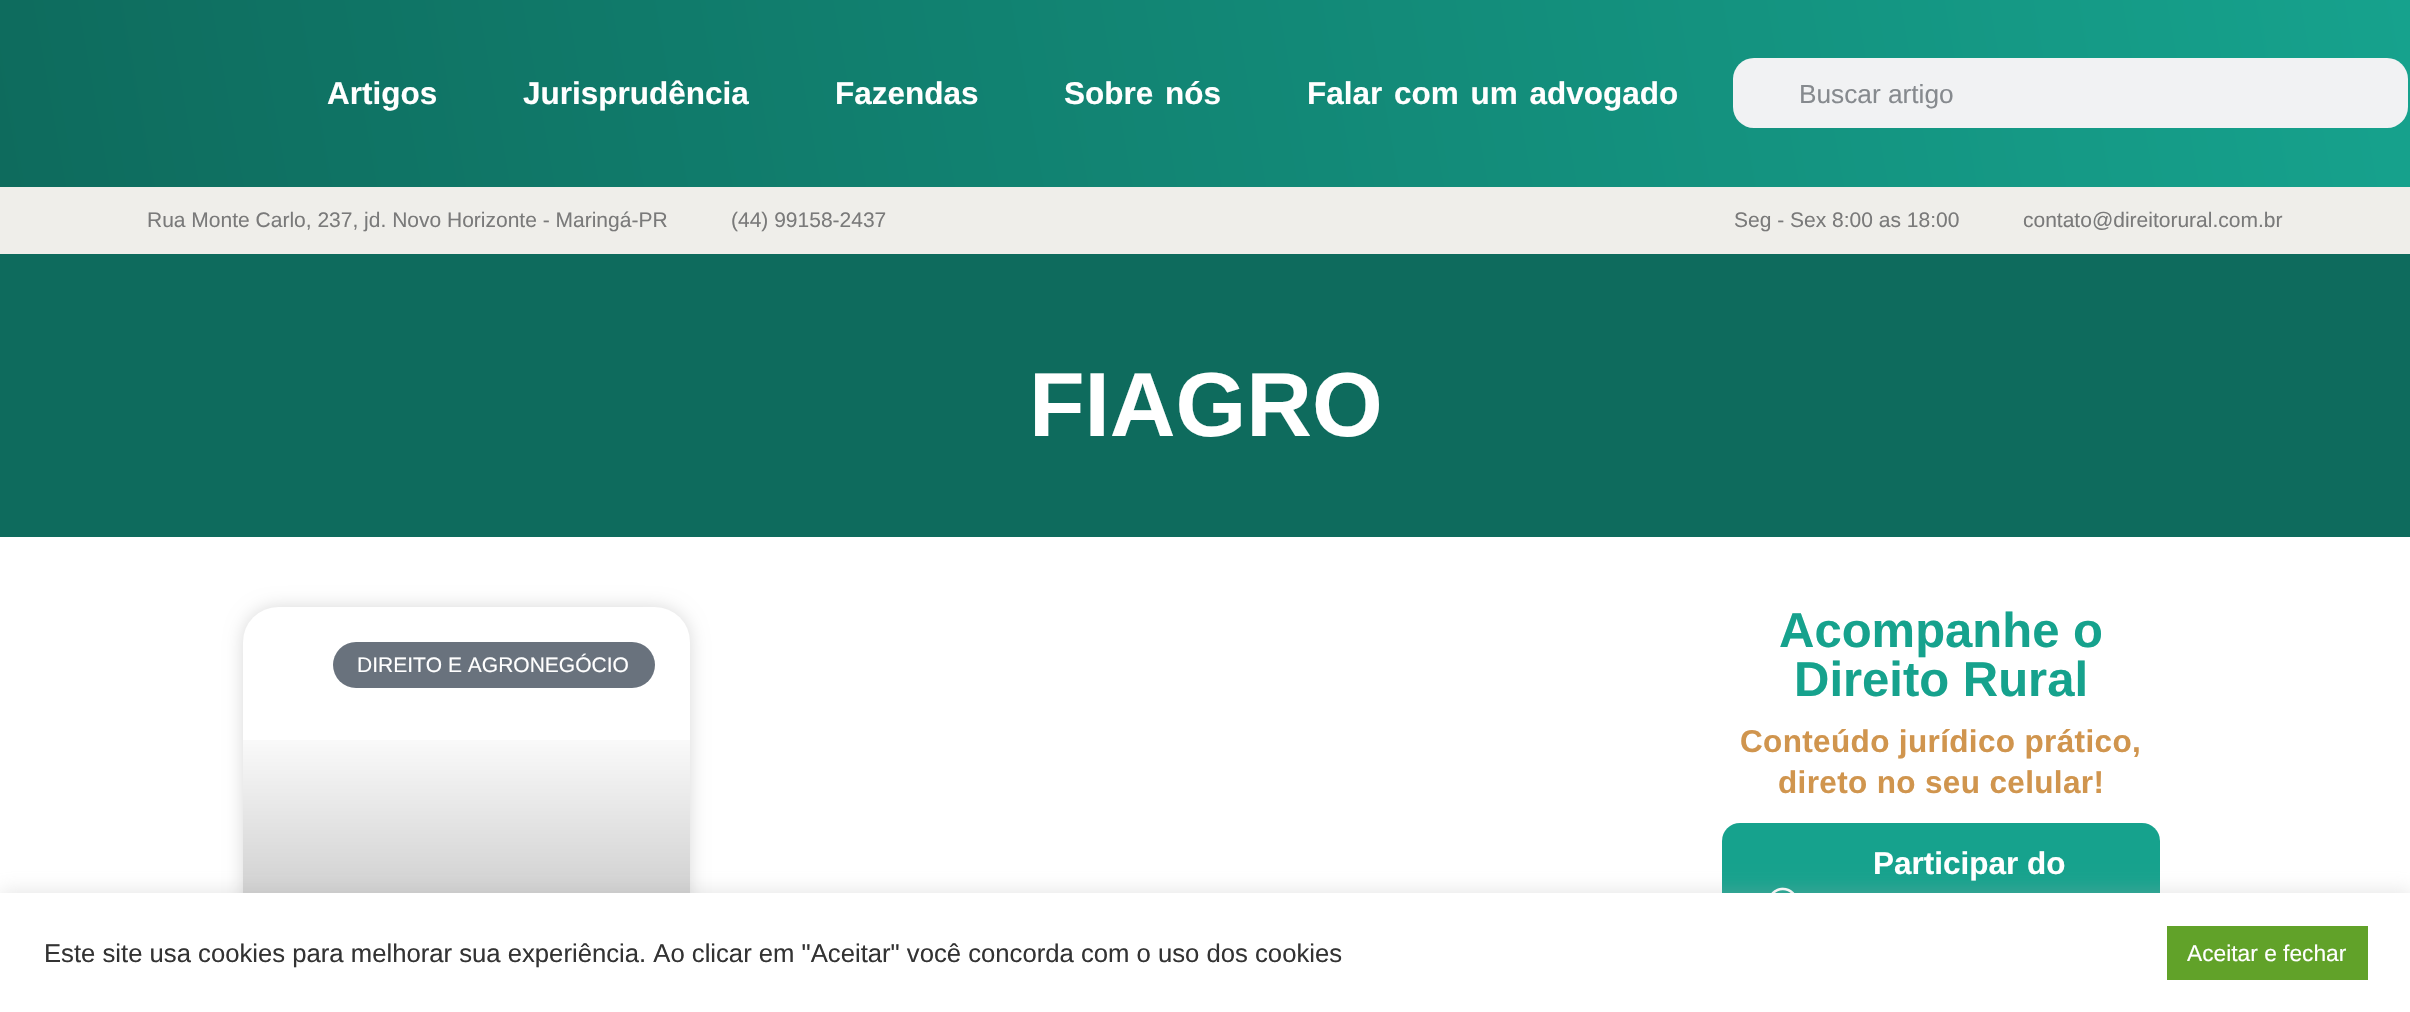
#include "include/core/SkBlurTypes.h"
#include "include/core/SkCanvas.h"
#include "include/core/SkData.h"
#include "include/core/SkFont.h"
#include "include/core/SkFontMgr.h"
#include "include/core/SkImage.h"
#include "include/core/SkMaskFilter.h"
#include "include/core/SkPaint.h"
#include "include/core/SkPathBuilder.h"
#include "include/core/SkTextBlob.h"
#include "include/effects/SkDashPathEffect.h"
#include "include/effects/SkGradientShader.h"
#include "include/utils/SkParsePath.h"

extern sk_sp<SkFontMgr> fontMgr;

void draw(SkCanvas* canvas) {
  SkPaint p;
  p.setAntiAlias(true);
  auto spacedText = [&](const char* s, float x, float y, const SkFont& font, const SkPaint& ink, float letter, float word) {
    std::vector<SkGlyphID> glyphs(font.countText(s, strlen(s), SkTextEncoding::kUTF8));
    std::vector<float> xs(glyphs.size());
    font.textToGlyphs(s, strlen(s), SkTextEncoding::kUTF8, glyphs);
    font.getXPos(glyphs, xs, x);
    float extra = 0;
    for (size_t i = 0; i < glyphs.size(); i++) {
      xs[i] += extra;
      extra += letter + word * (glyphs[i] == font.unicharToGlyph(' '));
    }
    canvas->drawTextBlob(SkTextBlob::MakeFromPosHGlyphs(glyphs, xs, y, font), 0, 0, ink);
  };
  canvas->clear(SK_ColorWHITE);
  {
    const SkColor colors[] = {SkColorSetRGB(14, 107, 93), SkColorSetRGB(22, 162, 141)};
    const float stops[] = {0, 1};
    const SkPoint ends[] = {{20, 303}, {2391, -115}};
    p.setShader(SkGradientShader::MakeLinear(ends, colors, stops, 2, SkTileMode::kClamp));
    p.setAlpha(255);
  }
  canvas->drawRect(SkRect::MakeLTRB(0, 0, 2410, 187), p);
  p.setShader(nullptr);
  p.setColor(SkColorSetRGB(241, 242, 243));
  canvas->drawRoundRect(SkRect::MakeLTRB(1733, 58, 2408, 128), 21, 21, p);
  p.setColor(SkColorSetRGB(239, 238, 234));
  canvas->drawRect(SkRect::MakeLTRB(0, 187, 2410, 254), p);
  p.setColor(SkColorSetRGB(14, 107, 93));
  canvas->drawRect(SkRect::MakeLTRB(0, 254, 2410, 537), p);
  p.setColor(SkColorSetARGB(38, 0, 0, 0));
  p.setMaskFilter(SkMaskFilter::MakeBlur(kNormal_SkBlurStyle, 9));
  canvas->drawRoundRect(SkRect::MakeLTRB(243, 607, 690, 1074), 35, 35, p);
  p.setMaskFilter(nullptr);
  p.setColor(SK_ColorWHITE);
  canvas->drawRoundRect(SkRect::MakeLTRB(243, 607, 690, 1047), 35, 35, p);
  p.setColor(SkColorSetRGB(105, 114, 125));
  canvas->drawRoundRect(SkRect::MakeLTRB(333, 642, 655, 688), 23, 23, p);
  {
    const SkColor colors[] = {SkColorSetARGB(89, 0, 0, 0), SkColorSetARGB(0, 0, 0, 0)};
    const float stops[] = {0, 0.75f};
    const SkPoint ends[] = {{466, 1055}, {466, 607}};
    p.setShader(SkGradientShader::MakeLinear(ends, colors, stops, 2, SkTileMode::kClamp));
    p.setAlpha(255);
  }
  canvas->drawRect(SkRect::MakeLTRB(243, 740, 690, 893), p);
  p.setShader(nullptr);
  p.setColor(SkColorSetRGB(22, 162, 141));
  canvas->drawRoundRect(SkRect::MakeLTRB(1722, 823, 2160, 984), 18, 18, p);
  canvas->drawImageRect(SkImages::DeferredFromEncodedData(SkData::MakeFromFileName("images/1.png")), SkRect::MakeLTRB(1771, 887, 1795, 893), SkSamplingOptions());
  p.setColor(SkColorSetARGB(77, 172, 171, 171));
  p.setMaskFilter(SkMaskFilter::MakeBlur(kNormal_SkBlurStyle, 9));
  canvas->drawRect(SkRect::MakeLTRB(0, 891, 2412, 1012), p);
  p.setMaskFilter(nullptr);
  p.setColor(SK_ColorWHITE);
  canvas->drawRect(SkRect::MakeLTRB(0, 893, 2410, 1012), p);
  p.setColor(SkColorSetRGB(97, 162, 41));
  canvas->drawRect(SkRect::MakeLTRB(2167, 926, 2368, 980), p);
  SkFont font1(fontMgr->matchFamilyStyle("Liberation Sans", SkFontStyle::Bold()), 31.5f);
  font1.setSubpixel(true);
  p.setColor(SK_ColorWHITE);
  canvas->drawString("Artigos", 327, 104, font1, p);
  canvas->drawString("Jurisprudência", 523, 104, font1, p);
  canvas->drawString("Fazendas", 835, 104, font1, p);
  spacedText("Sobre nós", 1064, 104, font1, p, 0, 3);
  spacedText("Falar com um advogado", 1307, 104, font1, p, 0, 3);
  SkFont font2(fontMgr->matchFamilyStyle("Liberation Sans", SkFontStyle::Normal()), 26.25f);
  font2.setSubpixel(true);
  p.setColor(SkColorSetRGB(134, 138, 142));
  canvas->drawString("Buscar artigo", 1799, 103, font2, p);
  SkFont font3(fontMgr->matchFamilyStyle("Liberation Sans", SkFontStyle::Normal()), 21);
  font3.setSubpixel(true);
  p.setColor(SkColorSetRGB(122, 122, 122));
  canvas->drawString("Rua Monte Carlo, 237, jd. Novo Horizonte - Maringá-PR", 147, 227, font3, p);
  canvas->drawString("(44) 99158-2437", 731, 227, font3, p);
  canvas->drawString("Seg - Sex 8:00 as 18:00", 1734, 227, font3, p);
  canvas->drawString("contato@direitorural.com.br", 2023, 227, font3, p);
  SkFont font4(fontMgr->matchFamilyStyle("Liberation Sans", SkFontStyle::Bold()), 91);
  font4.setSubpixel(true);
  p.setColor(SK_ColorWHITE);
  canvas->drawString("FIAGRO", 1029, 436, font4, p);
  canvas->drawString("DIREITO E AGRONEGÓCIO", 357, 672, font3, p);
  SkFont font5(fontMgr->matchFamilyStyle("Liberation Sans", SkFontStyle::Bold()), 49);
  font5.setSubpixel(true);
  p.setColor(SkColorSetRGB(22, 162, 141));
  canvas->drawString("Acompanhe o", 1779, 647, font5, p);
  canvas->drawString("Direito Rural", 1794, 696, font5, p);
  p.setColor(SkColorSetRGB(208, 149, 78));
  spacedText("Conteúdo jurídico prático,", 1740, 752, font1, p, 0.35f, 0);
  spacedText("direto no seu celular!", 1778, 793, font1, p, 0.35f, 0);
  p.setColor(SK_ColorWHITE);
  canvas->drawString("Participar do", 1873, 874, font1, p);
  SkFont font6(fontMgr->matchFamilyStyle("Liberation Sans", SkFontStyle::Normal()), 25.67f);
  font6.setSubpixel(true);
  p.setColor(SkColorSetRGB(51, 51, 51));
  canvas->drawString("Este site usa cookies para melhorar sua experiência. Ao clicar em \"Aceitar\" você concorda com o uso dos cookies", 44, 962, font6, p);
  SkFont font7(fontMgr->matchFamilyStyle("Liberation Sans", SkFontStyle::Normal()), 22.75f);
  font7.setSubpixel(true);
  p.setColor(SK_ColorWHITE);
  canvas->drawString("Aceitar e fechar", 2187, 961, font7, p);
}
